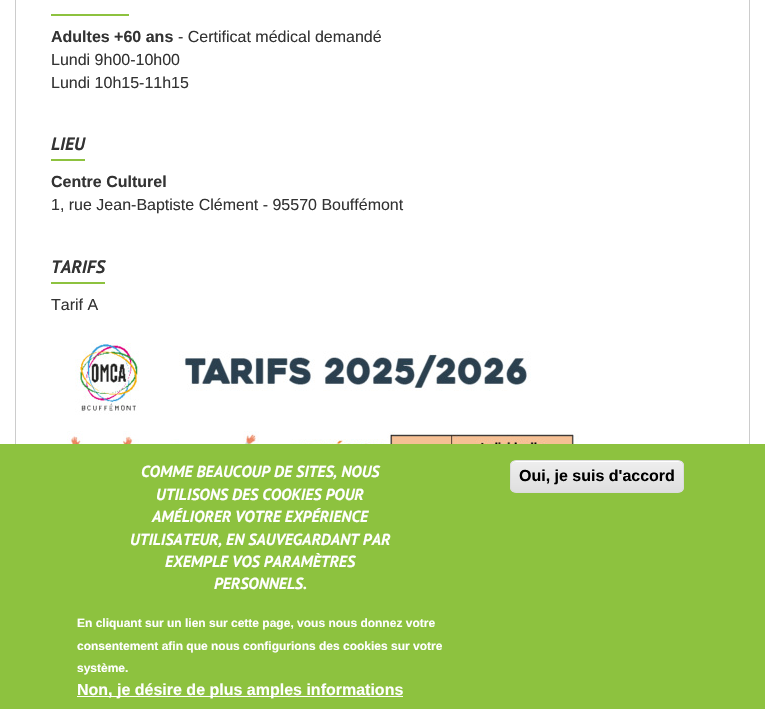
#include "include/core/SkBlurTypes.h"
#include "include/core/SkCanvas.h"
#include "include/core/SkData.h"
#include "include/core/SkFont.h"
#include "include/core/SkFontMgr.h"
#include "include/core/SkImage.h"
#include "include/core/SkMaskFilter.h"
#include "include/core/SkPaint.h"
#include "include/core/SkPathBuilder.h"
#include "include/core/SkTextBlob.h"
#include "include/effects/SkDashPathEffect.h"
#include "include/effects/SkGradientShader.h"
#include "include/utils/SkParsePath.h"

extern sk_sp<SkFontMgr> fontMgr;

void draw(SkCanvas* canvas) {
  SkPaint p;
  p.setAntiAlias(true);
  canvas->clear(SK_ColorWHITE);
  p.setStyle(SkPaint::kStroke_Style);
  p.setStrokeWidth(1);
  p.setColor(SkColorSetRGB(204, 204, 204));
  canvas->drawRect(SkRect::MakeLTRB(15.5f, -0.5f, 749.5f, 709.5f), p);
  p.setStyle(SkPaint::kFill_Style);
  p.setColor(SkColorSetRGB(141, 194, 63));
  canvas->drawRect(SkRect::MakeLTRB(51, 14, 129, 16), p);
  canvas->drawRect(SkRect::MakeLTRB(51, 159, 85, 161), p);
  canvas->drawRect(SkRect::MakeLTRB(51, 282, 105, 284), p);
  canvas->drawImageRect(SkImages::DeferredFromEncodedData(SkData::MakeFromFileName("images/1.png")), SkRect::MakeLTRB(59, 343, 579, 444), SkSamplingOptions());
  canvas->drawRect(SkRect::MakeLTRB(0, 444, 765, 709), p);
  p.setColor(SK_ColorWHITE);
  canvas->drawRect(SkRect::MakeLTRB(77, 696, 403, 697), p);
  canvas->save();
  canvas->clipPath(SkPathBuilder().moveTo(516, 460).lineTo(678, 460).cubicTo(681.5f, 460, 684, 462.5f, 684, 466).lineTo(684, 487).cubicTo(684, 490.5f, 681.5f, 493, 678, 493).lineTo(516, 493).cubicTo(512.5f, 493, 510, 490.5f, 510, 487).lineTo(510, 466).cubicTo(510, 462.5f, 512.5f, 460, 516, 460).close().detach(), true);
  {
    const SkColor colors[] = {SkColorSetRGB(237, 237, 237), SkColorSetRGB(223, 223, 223)};
    const float stops[] = {0.05f, 1};
    const SkPoint ends[] = {{597, 461}, {597, 492}};
    p.setShader(SkGradientShader::MakeLinear(ends, colors, stops, 2, SkTileMode::kClamp));
    p.setAlpha(255);
  }
  canvas->drawRect(SkRect::MakeLTRB(510, 461, 684, 492), p);
  canvas->restore();
  p.setShader(nullptr);
  p.setColor(SK_ColorWHITE);
  canvas->drawPath(SkPathBuilder().moveTo(516, 462).lineTo(678, 462).cubicTo(681, 462, 683, 464, 683, 467).cubicTo(683, 464, 682, 462, 679, 461).lineTo(516, 461).cubicTo(513, 461, 511, 464, 511, 467).cubicTo(511, 464, 513, 462, 516, 462).close().detach(), p);
  p.setStyle(SkPaint::kStroke_Style);
  p.setColor(SkColorSetRGB(220, 220, 220));
  canvas->drawRoundRect(SkRect::MakeLTRB(510.5f, 460.5f, 683.5f, 492.5f), 5.5f, 5.5f, p);
  SkFont font1(fontMgr->matchFamilyStyle("Liberation Sans", SkFontStyle::Bold()), 16);
  font1.setSubpixel(true);
  p.setStyle(SkPaint::kFill_Style);
  p.setColor(SkColorSetRGB(51, 51, 51));
  canvas->drawString("Adultes +60 ans", 51, 42, font1, p);
  SkFont font2(fontMgr->matchFamilyStyle("Liberation Sans", SkFontStyle::Normal()), 16);
  font2.setSubpixel(true);
  canvas->drawString("- Certificat médical demandé", 178, 42, font2, p);
  canvas->drawString("Lundi 9h00-10h00", 51, 65, font2, p);
  canvas->drawString("Lundi 10h15-11h15", 51, 88, font2, p);
  SkFont font3(fontMgr->matchFamilyStyle("PT Sans", SkFontStyle::BoldItalic()), 18);
  font3.setSubpixel(true);
  canvas->drawString("LIEU", 51, 150, font3, p);
  canvas->drawString("Centre Culturel", 51, 187, font1, p);
  canvas->drawString("1, rue Jean-Baptiste Clément - 95570 Bouffémont", 51, 210, font2, p);
  canvas->drawString("TARIFS", 51, 273, font3, p);
  canvas->drawString("Tarif A", 51, 310, font2, p);
  SkFont font4(fontMgr->matchFamilyStyle("PT Sans", SkFontStyle::BoldItalic()), 16);
  font4.setSubpixel(true);
  p.setColor(SK_ColorWHITE);
  canvas->drawString("COMME BEAUCOUP DE SITES, NOUS", 141, 477, font4, p);
  canvas->drawString("UTILISONS DES COOKIES POUR", 156, 500, font4, p);
  canvas->drawString("AMÉLIORER VOTRE EXPÉRIENCE", 152, 522, font4, p);
  canvas->drawString("UTILISATEUR, EN SAUVEGARDANT PAR", 130, 545, font4, p);
  canvas->drawString("EXEMPLE VOS PARAMÈTRES", 165, 567, font4, p);
  canvas->drawString("PERSONNELS.", 214, 589, font4, p);
  SkFont font5(fontMgr->matchFamilyStyle("Liberation Sans", SkFontStyle::Bold()), 12);
  font5.setSubpixel(true);
  canvas->drawString("En cliquant sur un lien sur cette page, vous nous donnez votre", 77, 627, font5, p);
  canvas->drawString("consentement afin que nous configurions des cookies sur votre", 77, 650, font5, p);
  canvas->drawString("système.", 77, 672, font5, p);
  canvas->drawString("Non, je désire de plus amples informations", 77, 695, font1, p);
  p.setColor(SK_ColorBLACK);
  canvas->drawString("Oui, je suis d'accord", 519, 481, font1, p);
}
